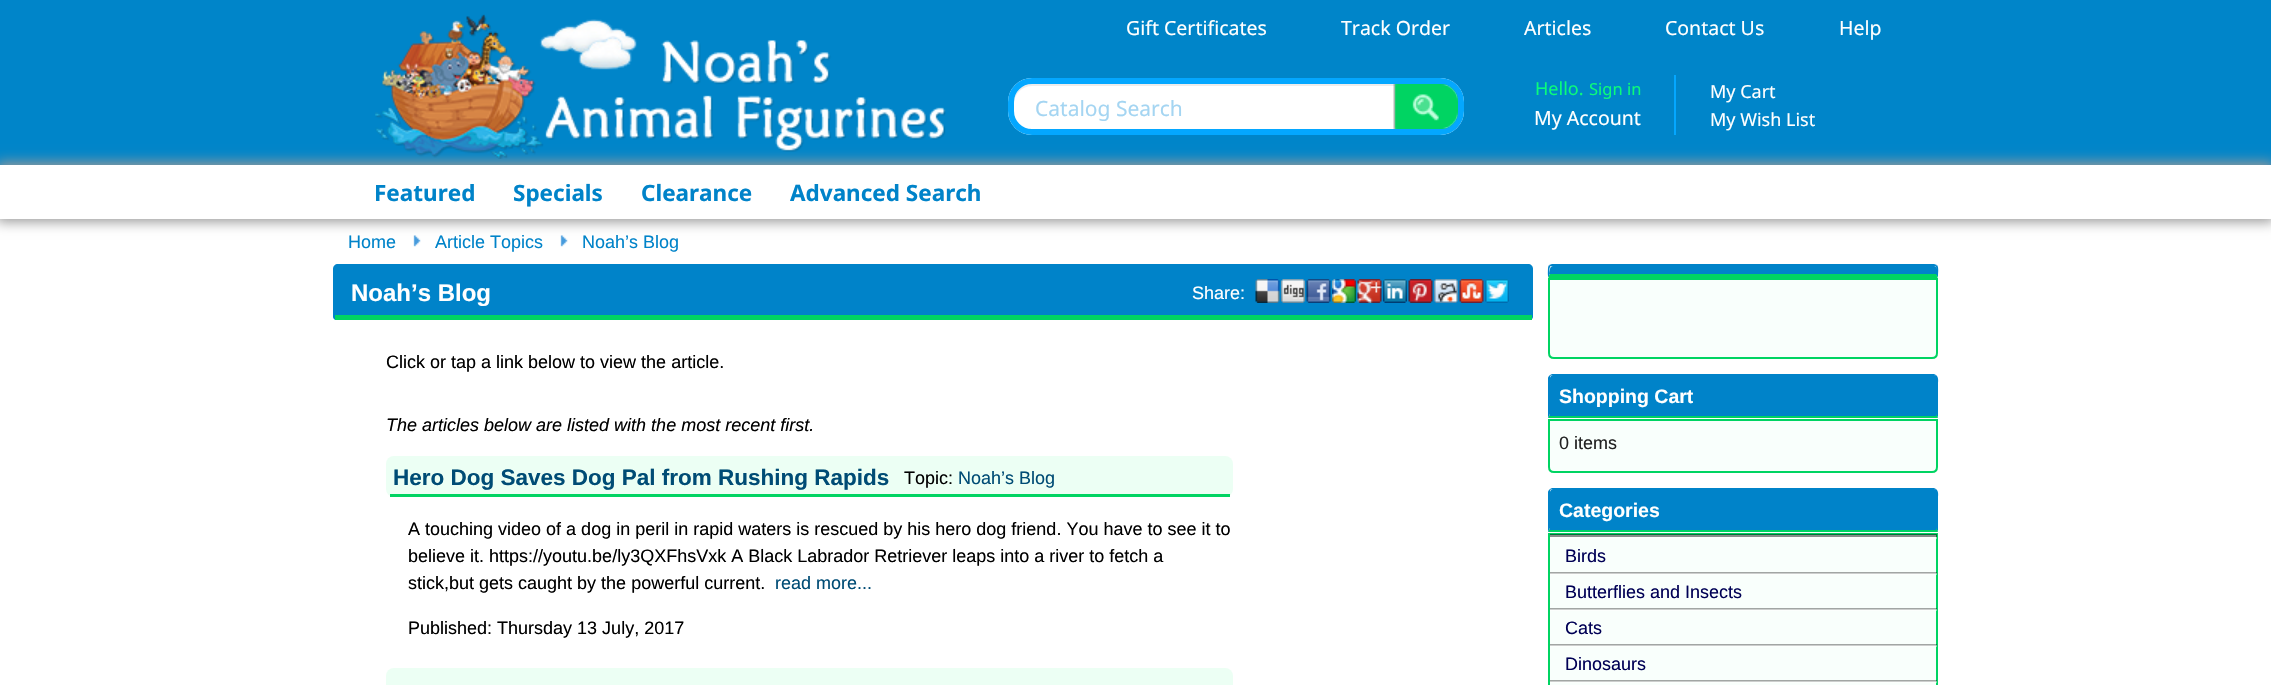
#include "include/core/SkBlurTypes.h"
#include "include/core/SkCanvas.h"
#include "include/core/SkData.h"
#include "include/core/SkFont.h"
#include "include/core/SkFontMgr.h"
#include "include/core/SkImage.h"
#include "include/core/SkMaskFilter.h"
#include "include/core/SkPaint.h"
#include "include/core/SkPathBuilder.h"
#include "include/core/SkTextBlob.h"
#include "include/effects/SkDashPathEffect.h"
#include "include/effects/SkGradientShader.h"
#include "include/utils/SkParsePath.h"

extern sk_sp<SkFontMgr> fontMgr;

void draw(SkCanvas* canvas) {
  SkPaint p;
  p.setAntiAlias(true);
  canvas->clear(SK_ColorWHITE);
  p.setColor(SkColorSetRGB(0, 133, 201));
  canvas->drawRect(SkRect::MakeLTRB(0, 0, 2271, 165), p);
  canvas->save();
  canvas->clipPath(SkPathBuilder(SkPathFillType::kEvenOdd).moveTo(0, 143).lineTo(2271, 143).lineTo(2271, 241).lineTo(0, 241).close().moveTo(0, 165).lineTo(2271, 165).lineTo(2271, 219).lineTo(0, 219).close().detach(), true);
  p.setColor(SkColorSetRGB(153, 153, 153));
  p.setMaskFilter(SkMaskFilter::MakeBlur(kNormal_SkBlurStyle, 6));
  canvas->drawRect(SkRect::MakeLTRB(-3, 162, 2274, 222), p);
  p.setMaskFilter(nullptr);
  canvas->restore();
  canvas->drawImageRect(SkImages::DeferredFromEncodedData(SkData::MakeFromFileName("images/1.png")), SkRect::MakeLTRB(375, 14, 946, 159), SkSamplingOptions());
  p.setColor(SK_ColorWHITE);
  canvas->drawRoundRect(SkRect::MakeLTRB(1008, 78, 1464, 135), 24, 24, p);
  p.setColor(SkColorSetRGB(236, 236, 236));
  canvas->drawPath(SkPathBuilder().moveTo(1032, 86).lineTo(1440, 86).cubicTo(1450, 86, 1458, 94, 1458, 104).lineTo(1458, 102).cubicTo(1458, 92, 1450, 84, 1440, 84).lineTo(1032, 84).cubicTo(1022, 84, 1014, 92, 1014, 102).lineTo(1014, 104).cubicTo(1014, 94, 1022, 86, 1032, 86).close().detach(), p);
  p.setStyle(SkPaint::kStroke_Style);
  p.setStrokeWidth(6);
  p.setColor(SkColorSetRGB(4, 167, 255));
  canvas->drawRoundRect(SkRect::MakeLTRB(1011, 81, 1461, 132), 21, 21, p);
  canvas->drawImageRect(SkImages::DeferredFromEncodedData(SkData::MakeFromFileName("images/2.png")), SkRect::MakeLTRB(1393, 84, 1458, 129), SkSamplingOptions());
  p.setStyle(SkPaint::kFill_Style);
  canvas->drawRect(SkRect::MakeLTRB(1674, 75, 1676, 135), p);
  canvas->drawImageRect(SkImages::DeferredFromEncodedData(SkData::MakeFromFileName("images/3.png")), SkRect::MakeLTRB(413, 235, 421, 247), SkSamplingOptions());
  canvas->drawImageRect(SkImages::DeferredFromEncodedData(SkData::MakeFromFileName("images/3.png")), SkRect::MakeLTRB(560, 235, 568, 247), SkSamplingOptions());
  p.setColor(SkColorSetRGB(0, 131, 201));
  canvas->drawPath(SkPathBuilder().moveTo(338, 264).lineTo(1528, 264).cubicTo(1531, 264, 1533, 266, 1533, 269).lineTo(1533, 317).cubicTo(1533, 318.5f, 1531.5f, 320, 1530, 320).lineTo(336, 320).cubicTo(334.5f, 320, 333, 318.5f, 333, 317).lineTo(333, 269).cubicTo(333, 266, 335, 264, 338, 264).close().detach(), p);
  p.setColor(SkColorSetRGB(0, 212, 98));
  canvas->drawRect(SkRect::MakeLTRB(335, 315, 1532, 320), p);
  canvas->drawImageRect(SkImages::DeferredFromEncodedData(SkData::MakeFromFileName("images/4.png")), SkRect::MakeLTRB(1255, 279, 1280, 303), SkSamplingOptions());
  canvas->drawImageRect(SkImages::DeferredFromEncodedData(SkData::MakeFromFileName("images/5.png")), SkRect::MakeLTRB(1281, 279, 1305, 303), SkSamplingOptions());
  canvas->drawImageRect(SkImages::DeferredFromEncodedData(SkData::MakeFromFileName("images/6.png")), SkRect::MakeLTRB(1306, 279, 1331, 303), SkSamplingOptions());
  canvas->drawImageRect(SkImages::DeferredFromEncodedData(SkData::MakeFromFileName("images/7.png")), SkRect::MakeLTRB(1332, 279, 1356, 303), SkSamplingOptions());
  canvas->drawImageRect(SkImages::DeferredFromEncodedData(SkData::MakeFromFileName("images/8.png")), SkRect::MakeLTRB(1357, 279, 1382, 303), SkSamplingOptions());
  canvas->drawImageRect(SkImages::DeferredFromEncodedData(SkData::MakeFromFileName("images/9.png")), SkRect::MakeLTRB(1383, 279, 1407, 303), SkSamplingOptions());
  canvas->drawImageRect(SkImages::DeferredFromEncodedData(SkData::MakeFromFileName("images/10.png")), SkRect::MakeLTRB(1408, 279, 1433, 303), SkSamplingOptions());
  canvas->drawImageRect(SkImages::DeferredFromEncodedData(SkData::MakeFromFileName("images/11.png")), SkRect::MakeLTRB(1434, 279, 1458, 303), SkSamplingOptions());
  canvas->drawImageRect(SkImages::DeferredFromEncodedData(SkData::MakeFromFileName("images/12.png")), SkRect::MakeLTRB(1459, 279, 1484, 303), SkSamplingOptions());
  canvas->drawImageRect(SkImages::DeferredFromEncodedData(SkData::MakeFromFileName("images/13.png")), SkRect::MakeLTRB(1485, 279, 1509, 303), SkSamplingOptions());
  p.setColor(SkColorSetRGB(236, 255, 244));
  canvas->drawRoundRect(SkRect::MakeLTRB(386, 456, 1233, 497), 8, 8, p);
  p.setColor(SkColorSetRGB(0, 212, 98));
  canvas->drawRect(SkRect::MakeLTRB(390, 494, 1230, 497), p);
  p.setColor(SkColorSetRGB(236, 255, 244));
  canvas->drawRoundRect(SkRect::MakeLTRB(386, 668, 1233, 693), 8, 8, p);
  p.setColor(SkColorSetRGB(0, 131, 201));
  canvas->drawPath(SkPathBuilder().moveTo(1553, 266).lineTo(1934, 266).cubicTo(1935.5f, 266, 1937, 267.5f, 1937, 269).lineTo(1937, 275).lineTo(1550, 275).lineTo(1550, 269).cubicTo(1550, 267.5f, 1551.5f, 266, 1553, 266).close().detach(), p);
  canvas->drawPath(SkPathBuilder().moveTo(1552, 264).lineTo(1549, 265).lineTo(1550, 266).lineTo(1552, 266).lineTo(1936, 266).lineTo(1937, 265).lineTo(1934, 264).close().detach(), p);
  canvas->drawPath(SkPathBuilder().moveTo(1938, 276).cubicTo(1938, 273, 1939, 267.5f, 1937, 265).lineTo(1935.5f, 266.5f).cubicTo(1937.5f, 268, 1936, 271.5f, 1936, 273.5f).lineTo(1937.5f, 277).close().detach(), p);
  p.setColor(SkColorSetRGB(0, 212, 98));
  canvas->drawPath(SkPathBuilder().moveTo(1549, 278).lineTo(1548, 277).lineTo(1550, 274).lineTo(1936, 274).lineTo(1938, 277).lineTo(1937, 278).close().detach(), p);
  p.setColor(SkColorSetRGB(0, 131, 201));
  canvas->drawPath(SkPathBuilder().moveTo(1548, 268).cubicTo(1548, 270, 1547.5f, 275.5f, 1548.5f, 277).lineTo(1550, 273.5f).cubicTo(1550, 271.5f, 1548.5f, 268, 1550.5f, 266.5f).lineTo(1549, 265).cubicTo(1548.5f, 266, 1548, 267, 1548, 268).close().detach(), p);
  p.setColor(SkColorSetRGB(249, 255, 252));
  canvas->drawPath(SkPathBuilder().moveTo(1549, 279).lineTo(1937, 279).lineTo(1937, 353).cubicTo(1937, 356, 1935, 358, 1932, 358).lineTo(1554, 358).cubicTo(1551, 358, 1549, 356, 1549, 353).close().detach(), p);
  p.setStyle(SkPaint::kStroke_Style);
  p.setStrokeWidth(2);
  p.setColor(SkColorSetRGB(0, 212, 98));
  canvas->drawPath(SkPathBuilder().moveTo(1549, 279).lineTo(1937, 279).lineTo(1937, 353).cubicTo(1937, 356, 1935, 358, 1932, 358).lineTo(1554, 358).cubicTo(1551, 358, 1549, 356, 1549, 353).close().detach(), p);
  p.setStyle(SkPaint::kFill_Style);
  p.setColor(SkColorSetRGB(0, 131, 201));
  canvas->drawPath(SkPathBuilder().moveTo(1553, 375).lineTo(1934, 375).cubicTo(1935.5f, 375, 1937, 376.5f, 1937, 378).lineTo(1937, 416).lineTo(1550, 416).lineTo(1550, 378).cubicTo(1550, 376.5f, 1551.5f, 375, 1553, 375).close().detach(), p);
  canvas->drawPath(SkPathBuilder().moveTo(1552, 374).lineTo(1550, 375).lineTo(1550, 376).lineTo(1552, 375).lineTo(1743, 375).lineTo(1934, 375).lineTo(1936, 376).lineTo(1936, 375).lineTo(1934, 374).close().detach(), p);
  canvas->drawPath(SkPathBuilder().moveTo(1936, 375).cubicTo(1939, 377, 1938, 382, 1938, 384).lineTo(1938, 418).lineTo(1936, 414).lineTo(1936, 378).lineTo(1936, 376).close().detach(), p);
  p.setColor(SkColorSetRGB(0, 212, 98));
  canvas->drawPath(SkPathBuilder().moveTo(1938, 418).lineTo(1548, 418).lineTo(1550, 414).lineTo(1550, 416).lineTo(1936, 416).lineTo(1936, 414).close().detach(), p);
  p.setColor(SkColorSetRGB(0, 131, 201));
  canvas->drawPath(SkPathBuilder().moveTo(1548, 378).lineTo(1548, 417).lineTo(1548, 418).lineTo(1550, 414).lineTo(1550, 378).lineTo(1550, 376).lineTo(1550, 375).cubicTo(1549, 376, 1548, 377, 1548, 378).close().detach(), p);
  p.setColor(SkColorSetRGB(249, 255, 252));
  canvas->drawPath(SkPathBuilder().moveTo(1549, 420).lineTo(1937, 420).lineTo(1937, 467).cubicTo(1937, 470, 1935, 472, 1932, 472).lineTo(1554, 472).cubicTo(1551, 472, 1549, 470, 1549, 467).close().detach(), p);
  p.setStyle(SkPaint::kStroke_Style);
  p.setColor(SkColorSetRGB(0, 212, 98));
  canvas->drawPath(SkPathBuilder().moveTo(1549, 420).lineTo(1937, 420).lineTo(1937, 467).cubicTo(1937, 470, 1935, 472, 1932, 472).lineTo(1554, 472).cubicTo(1551, 472, 1549, 470, 1549, 467).close().detach(), p);
  p.setStyle(SkPaint::kFill_Style);
  p.setColor(SkColorSetRGB(0, 131, 201));
  canvas->drawPath(SkPathBuilder().moveTo(1553, 489).lineTo(1934, 489).cubicTo(1935.5f, 489, 1937, 490.5f, 1937, 492).lineTo(1937, 530).lineTo(1550, 530).lineTo(1550, 492).cubicTo(1550, 490.5f, 1551.5f, 489, 1553, 489).close().detach(), p);
  canvas->drawPath(SkPathBuilder().moveTo(1552, 488).lineTo(1550, 489).lineTo(1550, 490).lineTo(1552, 489).lineTo(1743, 489).lineTo(1934, 489).lineTo(1936, 490).lineTo(1936, 489).lineTo(1934, 488).close().detach(), p);
  canvas->drawPath(SkPathBuilder().moveTo(1936, 489).cubicTo(1939, 491, 1938, 496, 1938, 498).lineTo(1938, 532).lineTo(1936, 528).lineTo(1936, 492).lineTo(1936, 490).close().detach(), p);
  p.setColor(SkColorSetRGB(0, 212, 98));
  canvas->drawPath(SkPathBuilder().moveTo(1938, 532).lineTo(1548, 532).lineTo(1550, 528).lineTo(1550, 530).lineTo(1936, 530).lineTo(1936, 528).close().detach(), p);
  p.setColor(SkColorSetRGB(0, 131, 201));
  canvas->drawPath(SkPathBuilder().moveTo(1548, 492).lineTo(1548, 531).lineTo(1548, 532).lineTo(1550, 528).lineTo(1550, 492).lineTo(1550, 490).lineTo(1550, 489).cubicTo(1549, 490, 1548, 491, 1548, 492).close().detach(), p);
  p.setColor(SkColorSetRGB(249, 255, 252));
  canvas->drawRect(SkRect::MakeLTRB(1549, 534, 1937, 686), p);
  p.setStyle(SkPaint::kStroke_Style);
  p.setColor(SkColorSetRGB(0, 212, 98));
  canvas->drawRect(SkRect::MakeLTRB(1549, 534, 1937, 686), p);
  p.setStyle(SkPaint::kFill_Style);
  p.setColor(SkColorSetARGB(115, 0, 0, 0));
  canvas->drawRect(SkRect::MakeLTRB(1550, 534, 1937, 537), p);
  p.setColor(SkColorSetARGB(115, 255, 255, 255));
  canvas->drawRect(SkRect::MakeLTRB(1550, 537, 1937, 539), p);
  p.setColor(SkColorSetARGB(89, 0, 0, 0));
  canvas->drawRect(SkRect::MakeLTRB(1550, 572, 1937, 574), p);
  p.setColor(SkColorSetARGB(115, 255, 255, 255));
  canvas->drawRect(SkRect::MakeLTRB(1550, 573, 1937, 575), p);
  p.setColor(SkColorSetARGB(89, 0, 0, 0));
  canvas->drawRect(SkRect::MakeLTRB(1550, 608, 1937, 610), p);
  p.setColor(SkColorSetARGB(115, 255, 255, 255));
  canvas->drawRect(SkRect::MakeLTRB(1550, 609, 1937, 611), p);
  p.setColor(SkColorSetARGB(89, 0, 0, 0));
  canvas->drawRect(SkRect::MakeLTRB(1550, 644, 1937, 646), p);
  p.setColor(SkColorSetARGB(115, 255, 255, 255));
  canvas->drawRect(SkRect::MakeLTRB(1550, 645, 1937, 647), p);
  p.setColor(SkColorSetARGB(89, 0, 0, 0));
  canvas->drawRect(SkRect::MakeLTRB(1550, 680, 1937, 682), p);
  p.setColor(SkColorSetARGB(115, 255, 255, 255));
  canvas->drawRect(SkRect::MakeLTRB(1550, 681, 1937, 683), p);
  SkFont font1(fontMgr->matchFamilyStyle("Noto Sans", SkFontStyle::Normal()), 19.5f);
  font1.setSubpixel(true);
  p.setColor(SK_ColorWHITE);
  canvas->drawString("Gift Certificates", 1126, 35, font1, p);
  canvas->drawString("Track Order", 1341, 35, font1, p);
  canvas->drawString("Articles", 1524, 35, font1, p);
  canvas->drawString("Contact Us", 1665, 35, font1, p);
  canvas->drawString("Help", 1839, 35, font1, p);
  SkFont font2(fontMgr->matchFamilyStyle("Noto Sans", SkFontStyle::Normal()), 21);
  font2.setSubpixel(true);
  p.setColor(SkColorSetRGB(164, 213, 242));
  canvas->drawString("Catalog Search", 1035, 116, font2, p);
  SkFont font3(fontMgr->matchFamilyStyle("Noto Sans", SkFontStyle::Normal()), 18);
  font3.setSubpixel(true);
  p.setColor(SkColorSetRGB(10, 252, 122));
  canvas->drawString("Hello.", 1535, 95, font3, p);
  SkFont font4(fontMgr->matchFamilyStyle("Noto Sans", SkFontStyle::Normal()), 16.5f);
  font4.setSubpixel(true);
  canvas->drawString("Sign in", 1589, 95, font4, p);
  p.setColor(SK_ColorWHITE);
  canvas->drawString("My Account", 1534, 125, font1, p);
  canvas->drawString("My Cart", 1710, 98, font3, p);
  canvas->drawString("My Wish List", 1710, 126, font3, p);
  SkFont font5(fontMgr->matchFamilyStyle("Noto Sans", SkFontStyle::Bold()), 22.5f);
  font5.setSubpixel(true);
  p.setColor(SkColorSetRGB(0, 131, 201));
  canvas->drawString("Featured", 374, 201, font5, p);
  canvas->drawString("Specials", 513, 201, font5, p);
  canvas->drawString("Clearance", 641, 201, font5, p);
  canvas->drawString("Advanced Search", 790, 201, font5, p);
  SkFont font6(fontMgr->matchFamilyStyle("Liberation Sans", SkFontStyle::Normal()), 18);
  font6.setSubpixel(true);
  canvas->drawString("Home", 348, 248, font6, p);
  canvas->drawString("Article Topics", 435, 248, font6, p);
  canvas->drawString("Noah’s Blog", 582, 248, font6, p);
  SkFont font7(fontMgr->matchFamilyStyle("Liberation Sans", SkFontStyle::Bold()), 24);
  font7.setSubpixel(true);
  p.setColor(SK_ColorWHITE);
  canvas->drawString("Noah’s Blog", 351, 301, font7, p);
  canvas->drawString("Share:", 1192, 299, font6, p);
  p.setColor(SK_ColorBLACK);
  canvas->drawString("Click or tap a link below to view the article.", 386, 368, font6, p);
  SkFont font8(fontMgr->matchFamilyStyle("Liberation Sans", SkFontStyle::Italic()), 18);
  font8.setSubpixel(true);
  canvas->drawString("The articles below are listed with the most recent first.", 386, 431, font8, p);
  SkFont font9(fontMgr->matchFamilyStyle("Liberation Sans", SkFontStyle::Bold()), 22.5f);
  font9.setSubpixel(true);
  p.setColor(SkColorSetRGB(0, 76, 117));
  canvas->drawString("Hero Dog Saves Dog Pal from Rushing Rapids", 393, 485, font9, p);
  p.setColor(SK_ColorBLACK);
  canvas->drawString("Topic:", 904, 484, font6, p);
  p.setColor(SkColorSetRGB(0, 76, 117));
  canvas->drawString("Noah’s Blog", 958, 484, font6, p);
  p.setColor(SK_ColorBLACK);
  canvas->drawString("A touching video of a dog in peril in rapid waters is rescued by his hero dog friend. You have to see it to", 408, 535, font6, p);
  canvas->drawString("believe it. https://youtu.be/ly3QXFhsVxk A Black Labrador Retriever leaps into a river to fetch a", 408, 562, font6, p);
  canvas->drawString("stick,but gets caught by the powerful current.", 408, 589, font6, p);
  p.setColor(SkColorSetRGB(0, 76, 117));
  canvas->drawString("read more...", 775, 589, font6, p);
  p.setColor(SK_ColorBLACK);
  canvas->drawString("Published: Thursday 13 July, 2017", 408, 634, font6, p);
  SkFont font10(fontMgr->matchFamilyStyle("Liberation Sans", SkFontStyle::Bold()), 19.5f);
  font10.setSubpixel(true);
  p.setColor(SK_ColorWHITE);
  canvas->drawString("Shopping Cart", 1559, 403, font10, p);
  p.setColor(SkColorSetRGB(34, 34, 34));
  canvas->drawString("0 items", 1559, 449, font6, p);
  p.setColor(SK_ColorWHITE);
  canvas->drawString("Categories", 1559, 517, font10, p);
  p.setColor(SkColorSetRGB(0, 0, 85));
  canvas->drawString("Birds", 1565, 562, font6, p);
  canvas->drawString("Butterflies and Insects", 1565, 598, font6, p);
  canvas->drawString("Cats", 1565, 634, font6, p);
  canvas->drawString("Dinosaurs", 1565, 670, font6, p);
}
